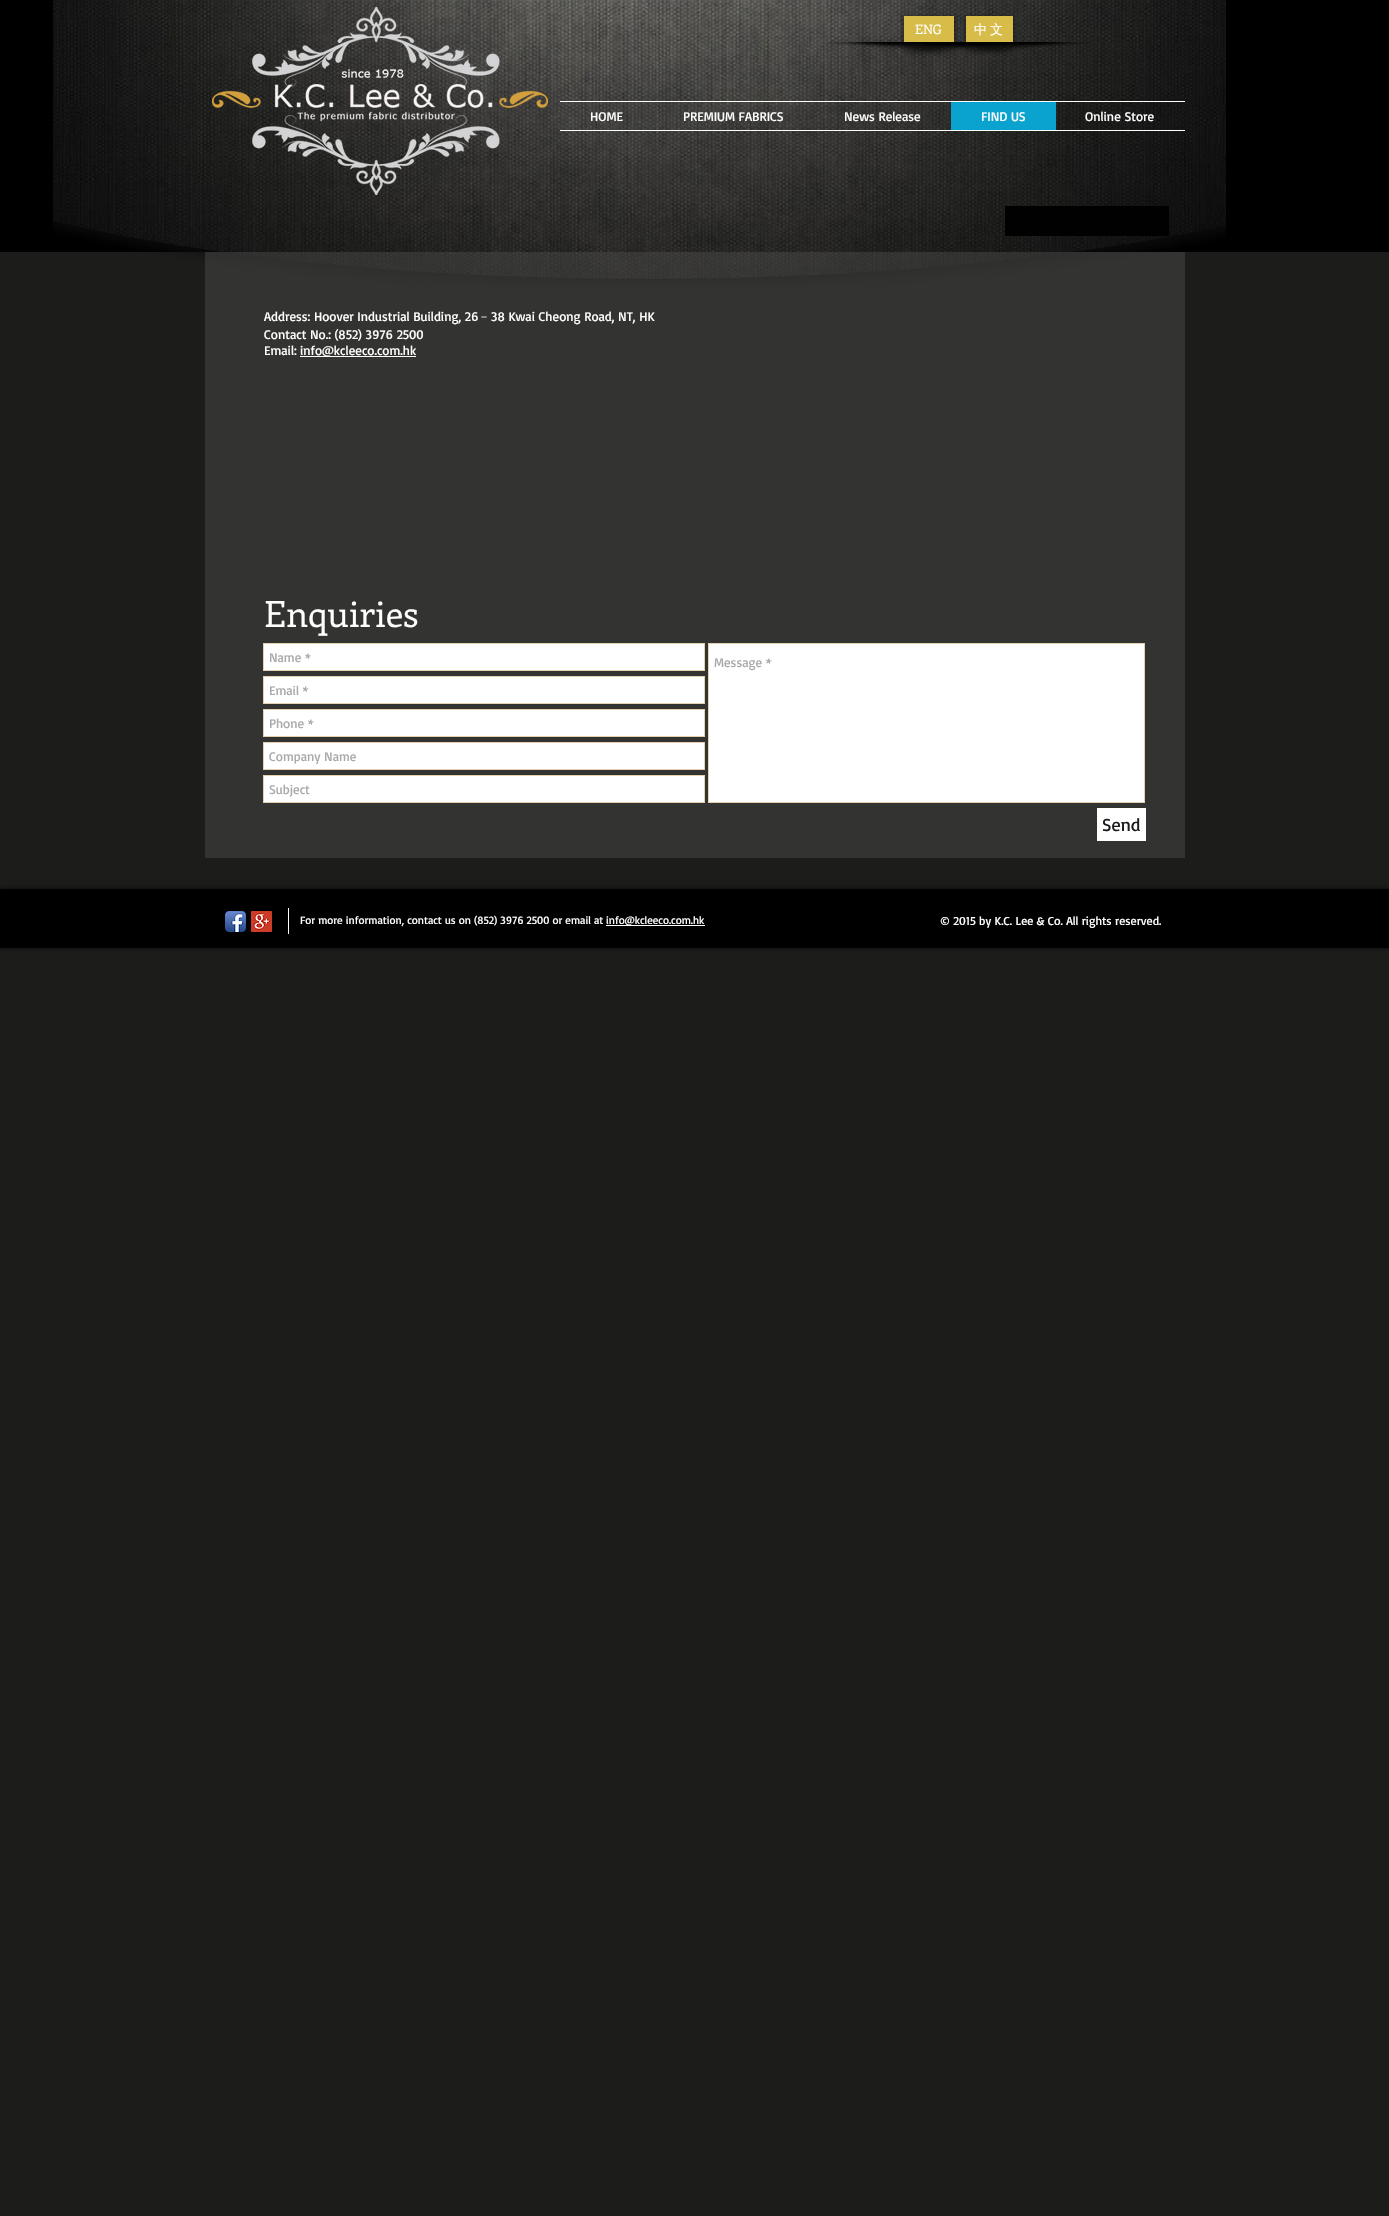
#include "include/core/SkBlurTypes.h"
#include "include/core/SkCanvas.h"
#include "include/core/SkData.h"
#include "include/core/SkFont.h"
#include "include/core/SkFontMgr.h"
#include "include/core/SkImage.h"
#include "include/core/SkMaskFilter.h"
#include "include/core/SkPaint.h"
#include "include/core/SkPathBuilder.h"
#include "include/core/SkTextBlob.h"
#include "include/effects/SkDashPathEffect.h"
#include "include/effects/SkGradientShader.h"
#include "include/utils/SkParsePath.h"

extern sk_sp<SkFontMgr> fontMgr;

void draw(SkCanvas* canvas) {
  SkPaint p;
  p.setAntiAlias(true);
  auto spacedText = [&](const char* s, float x, float y, const SkFont& font, const SkPaint& ink, float letter, float word) {
    std::vector<SkGlyphID> glyphs(font.countText(s, strlen(s), SkTextEncoding::kUTF8));
    std::vector<float> xs(glyphs.size());
    font.textToGlyphs(s, strlen(s), SkTextEncoding::kUTF8, glyphs);
    font.getXPos(glyphs, xs, x);
    float extra = 0;
    for (size_t i = 0; i < glyphs.size(); i++) {
      xs[i] += extra;
      extra += letter + word * (glyphs[i] == font.unicharToGlyph(' '));
    }
    canvas->drawTextBlob(SkTextBlob::MakeFromPosHGlyphs(glyphs, xs, y, font), 0, 0, ink);
  };
  canvas->clear(SkColorSetRGB(28, 28, 26));
  p.setColor(SK_ColorBLACK);
  canvas->drawRect(SkRect::MakeLTRB(0, 0, 1389, 252), p);
  canvas->drawImageRect(SkImages::DeferredFromEncodedData(SkData::MakeFromFileName("images/5.png")), SkRect::MakeLTRB(53, 0, 1226, 287), SkSamplingOptions());
  canvas->drawImageRect(SkImages::DeferredFromEncodedData(SkData::MakeFromFileName("images/2.png")), SkRect::MakeLTRB(902, 42, 1030, 57), SkSamplingOptions());
  canvas->drawImageRect(SkImages::DeferredFromEncodedData(SkData::MakeFromFileName("images/1.png")), SkRect::MakeLTRB(824, 42, 956, 57), SkSamplingOptions());
  p.setColor(SkColorSetARGB(153, 0, 0, 0));
  p.setMaskFilter(SkMaskFilter::MakeBlur(kNormal_SkBlurStyle, 2));
  canvas->drawRect(SkRect::MakeLTRB(904, 17, 954, 43), p);
  p.setMaskFilter(nullptr);
  p.setColor(SkColorSetRGB(216, 188, 73));
  canvas->drawRect(SkRect::MakeLTRB(904, 16, 954, 42), p);
  canvas->drawImageRect(SkImages::DeferredFromEncodedData(SkData::MakeFromFileName("images/4.png")), SkRect::MakeLTRB(965, 42, 1087, 57), SkSamplingOptions());
  canvas->drawImageRect(SkImages::DeferredFromEncodedData(SkData::MakeFromFileName("images/3.png")), SkRect::MakeLTRB(923, 42, 1013, 56), SkSamplingOptions());
  p.setColor(SkColorSetARGB(153, 0, 0, 0));
  p.setMaskFilter(SkMaskFilter::MakeBlur(kNormal_SkBlurStyle, 2));
  canvas->drawRect(SkRect::MakeLTRB(966, 17, 1013, 43), p);
  p.setMaskFilter(nullptr);
  p.setColor(SkColorSetRGB(216, 188, 73));
  canvas->drawRect(SkRect::MakeLTRB(966, 16, 1013, 42), p);
  p.setColor(SkColorSetARGB(125, 73, 73, 71));
  canvas->drawRect(SkRect::MakeLTRB(205, 252, 1185, 858), p);
  p.setColor(SK_ColorWHITE);
  canvas->drawRect(SkRect::MakeLTRB(300, 356, 416, 357), p);
  canvas->drawRect(SkRect::MakeLTRB(263.5f, 643.5f, 704.5f, 670.5f), p);
  p.setStyle(SkPaint::kStroke_Style);
  p.setStrokeWidth(1);
  p.setColor(SkColorSetRGB(229, 208, 176));
  canvas->drawRect(SkRect::MakeLTRB(263.5f, 643.5f, 704.5f, 670.5f), p);
  p.setStyle(SkPaint::kFill_Style);
  p.setColor(SK_ColorWHITE);
  canvas->drawRect(SkRect::MakeLTRB(708.5f, 643.5f, 1144.5f, 802.5f), p);
  p.setStyle(SkPaint::kStroke_Style);
  p.setColor(SkColorSetRGB(229, 208, 176));
  canvas->drawRect(SkRect::MakeLTRB(708.5f, 643.5f, 1144.5f, 802.5f), p);
  p.setStyle(SkPaint::kFill_Style);
  p.setColor(SK_ColorWHITE);
  canvas->drawRect(SkRect::MakeLTRB(263.5f, 676.5f, 704.5f, 703.5f), p);
  p.setStyle(SkPaint::kStroke_Style);
  p.setColor(SkColorSetRGB(229, 208, 176));
  canvas->drawRect(SkRect::MakeLTRB(263.5f, 676.5f, 704.5f, 703.5f), p);
  p.setStyle(SkPaint::kFill_Style);
  p.setColor(SK_ColorWHITE);
  canvas->drawRect(SkRect::MakeLTRB(263.5f, 709.5f, 704.5f, 736.5f), p);
  p.setStyle(SkPaint::kStroke_Style);
  p.setColor(SkColorSetRGB(229, 208, 176));
  canvas->drawRect(SkRect::MakeLTRB(263.5f, 709.5f, 704.5f, 736.5f), p);
  p.setStyle(SkPaint::kFill_Style);
  p.setColor(SK_ColorWHITE);
  canvas->drawRect(SkRect::MakeLTRB(263.5f, 742.5f, 704.5f, 769.5f), p);
  p.setStyle(SkPaint::kStroke_Style);
  p.setColor(SkColorSetRGB(229, 208, 176));
  canvas->drawRect(SkRect::MakeLTRB(263.5f, 742.5f, 704.5f, 769.5f), p);
  p.setStyle(SkPaint::kFill_Style);
  p.setColor(SK_ColorWHITE);
  canvas->drawRect(SkRect::MakeLTRB(263.5f, 775.5f, 704.5f, 802.5f), p);
  p.setStyle(SkPaint::kStroke_Style);
  p.setColor(SkColorSetRGB(229, 208, 176));
  canvas->drawRect(SkRect::MakeLTRB(263.5f, 775.5f, 704.5f, 802.5f), p);
  p.setStyle(SkPaint::kFill_Style);
  p.setColor(SK_ColorWHITE);
  canvas->drawRect(SkRect::MakeLTRB(1097, 808, 1146, 841), p);
  p.setColor(SkColorSetRGB(1, 1, 1));
  canvas->drawRect(SkRect::MakeLTRB(1005, 206, 1169, 236), p);
  canvas->drawImageRect(SkImages::DeferredFromEncodedData(SkData::MakeFromFileName("images/6.png")), SkRect::MakeLTRB(212, 7, 548, 195), SkSamplingOptions());
  p.setColor(SK_ColorWHITE);
  canvas->drawRect(SkRect::MakeLTRB(560, 101, 1185, 102), p);
  canvas->drawRect(SkRect::MakeLTRB(560, 130, 1185, 131), p);
  p.setColor(SkColorSetRGB(10, 163, 207));
  canvas->drawRect(SkRect::MakeLTRB(951, 102, 1056, 130), p);
  p.setColor(SkColorSetARGB(179, 0, 0, 0));
  p.setMaskFilter(SkMaskFilter::MakeBlur(kNormal_SkBlurStyle, 2.5f));
  canvas->drawRect(SkRect::MakeLTRB(0, 889, 1389, 948), p);
  p.setMaskFilter(nullptr);
  p.setColor(SK_ColorBLACK);
  canvas->drawRect(SkRect::MakeLTRB(0, 889, 1389, 948), p);
  canvas->drawImageRect(SkImages::DeferredFromEncodedData(SkData::MakeFromFileName("images/7.png")), SkRect::MakeLTRB(225, 911, 246, 932), SkSamplingOptions());
  canvas->drawImageRect(SkImages::DeferredFromEncodedData(SkData::MakeFromFileName("images/8.png")), SkRect::MakeLTRB(251, 911, 272, 932), SkSamplingOptions());
  p.setColor(SK_ColorWHITE);
  canvas->drawRect(SkRect::MakeLTRB(288, 908, 289, 934), p);
  canvas->drawRect(SkRect::MakeLTRB(606, 925, 705, 926), p);
  SkFont font1(fontMgr->matchFamilyStyle("Enriqueta", SkFontStyle::Normal()), 13);
  font1.setSubpixel(true);
  canvas->drawString("ENG", 915, 34, font1, p);
  SkFont font2(fontMgr->matchFamilyStyle("WenQuanYi Zen Hei", SkFontStyle(500, SkFontStyle::kNormal_Width, SkFontStyle::kUpright_Slant)), 13);
  font2.setSubpixel(true);
  spacedText("中 文", 974, 34, font2, p, 0, -1);
  SkFont font3(fontMgr->matchFamilyStyle("Basic", SkFontStyle::Normal()), 13);
  font3.setSubpixel(true);
  canvas->drawString("Address: Hoover Industrial Building, 26", 264, 321, font3, p);
  canvas->drawString("﹣", 478, 321, font2, p);
  canvas->drawString("38 Kwai Cheong Road, NT, HK", 491, 321, font3, p);
  canvas->drawString("Contact No.: (852) 3976 2500", 264, 339, font3, p);
  canvas->drawString("Email:", 264, 355, font3, p);
  canvas->drawString("info@kcleeco.com.hk", 300, 355, font3, p);
  SkFont font4(fontMgr->matchFamilyStyle("Enriqueta", SkFontStyle::Normal()), 36);
  font4.setSubpixel(true);
  canvas->drawString("Enquiries", 264, 627, font4, p);
  p.setColor(SkColorSetRGB(169, 169, 169));
  canvas->drawString("Name *", 269, 662, font3, p);
  canvas->drawString("Message *", 714, 667, font3, p);
  canvas->drawString("Email *", 269, 695, font3, p);
  canvas->drawString("Phone *", 269, 728, font3, p);
  canvas->drawString("Company Name", 269, 761, font3, p);
  canvas->drawString("Subject", 269, 794, font3, p);
  SkFont font5(fontMgr->matchFamilyStyle("Basic", SkFontStyle::Normal()), 18);
  font5.setSubpixel(true);
  p.setColor(SkColorSetRGB(28, 28, 26));
  canvas->drawString("Send", 1102, 831, font5, p);
  p.setColor(SK_ColorWHITE);
  canvas->drawString("HOME", 590, 121, font3, p);
  canvas->drawString("PREMIUM FABRICS", 683, 121, font3, p);
  canvas->drawString("News Release", 844, 121, font3, p);
  canvas->drawString("FIND US", 981, 121, font3, p);
  canvas->drawString("Online Store", 1085, 121, font3, p);
  SkFont font6(fontMgr->matchFamilyStyle("Basic", SkFontStyle::Normal()), 11);
  font6.setSubpixel(true);
  canvas->drawString("For more information, contact us on (852) 3976 2500 or email at", 300, 924, font6, p);
  canvas->drawString("info@kcleeco.com.hk", 606, 924, font6, p);
  SkFont font7(fontMgr->matchFamilyStyle("Basic", SkFontStyle::Normal()), 12);
  font7.setSubpixel(true);
  canvas->drawString("© 2015 by K.C. Lee & Co. All rights reserved.", 940, 925, font7, p);
}
